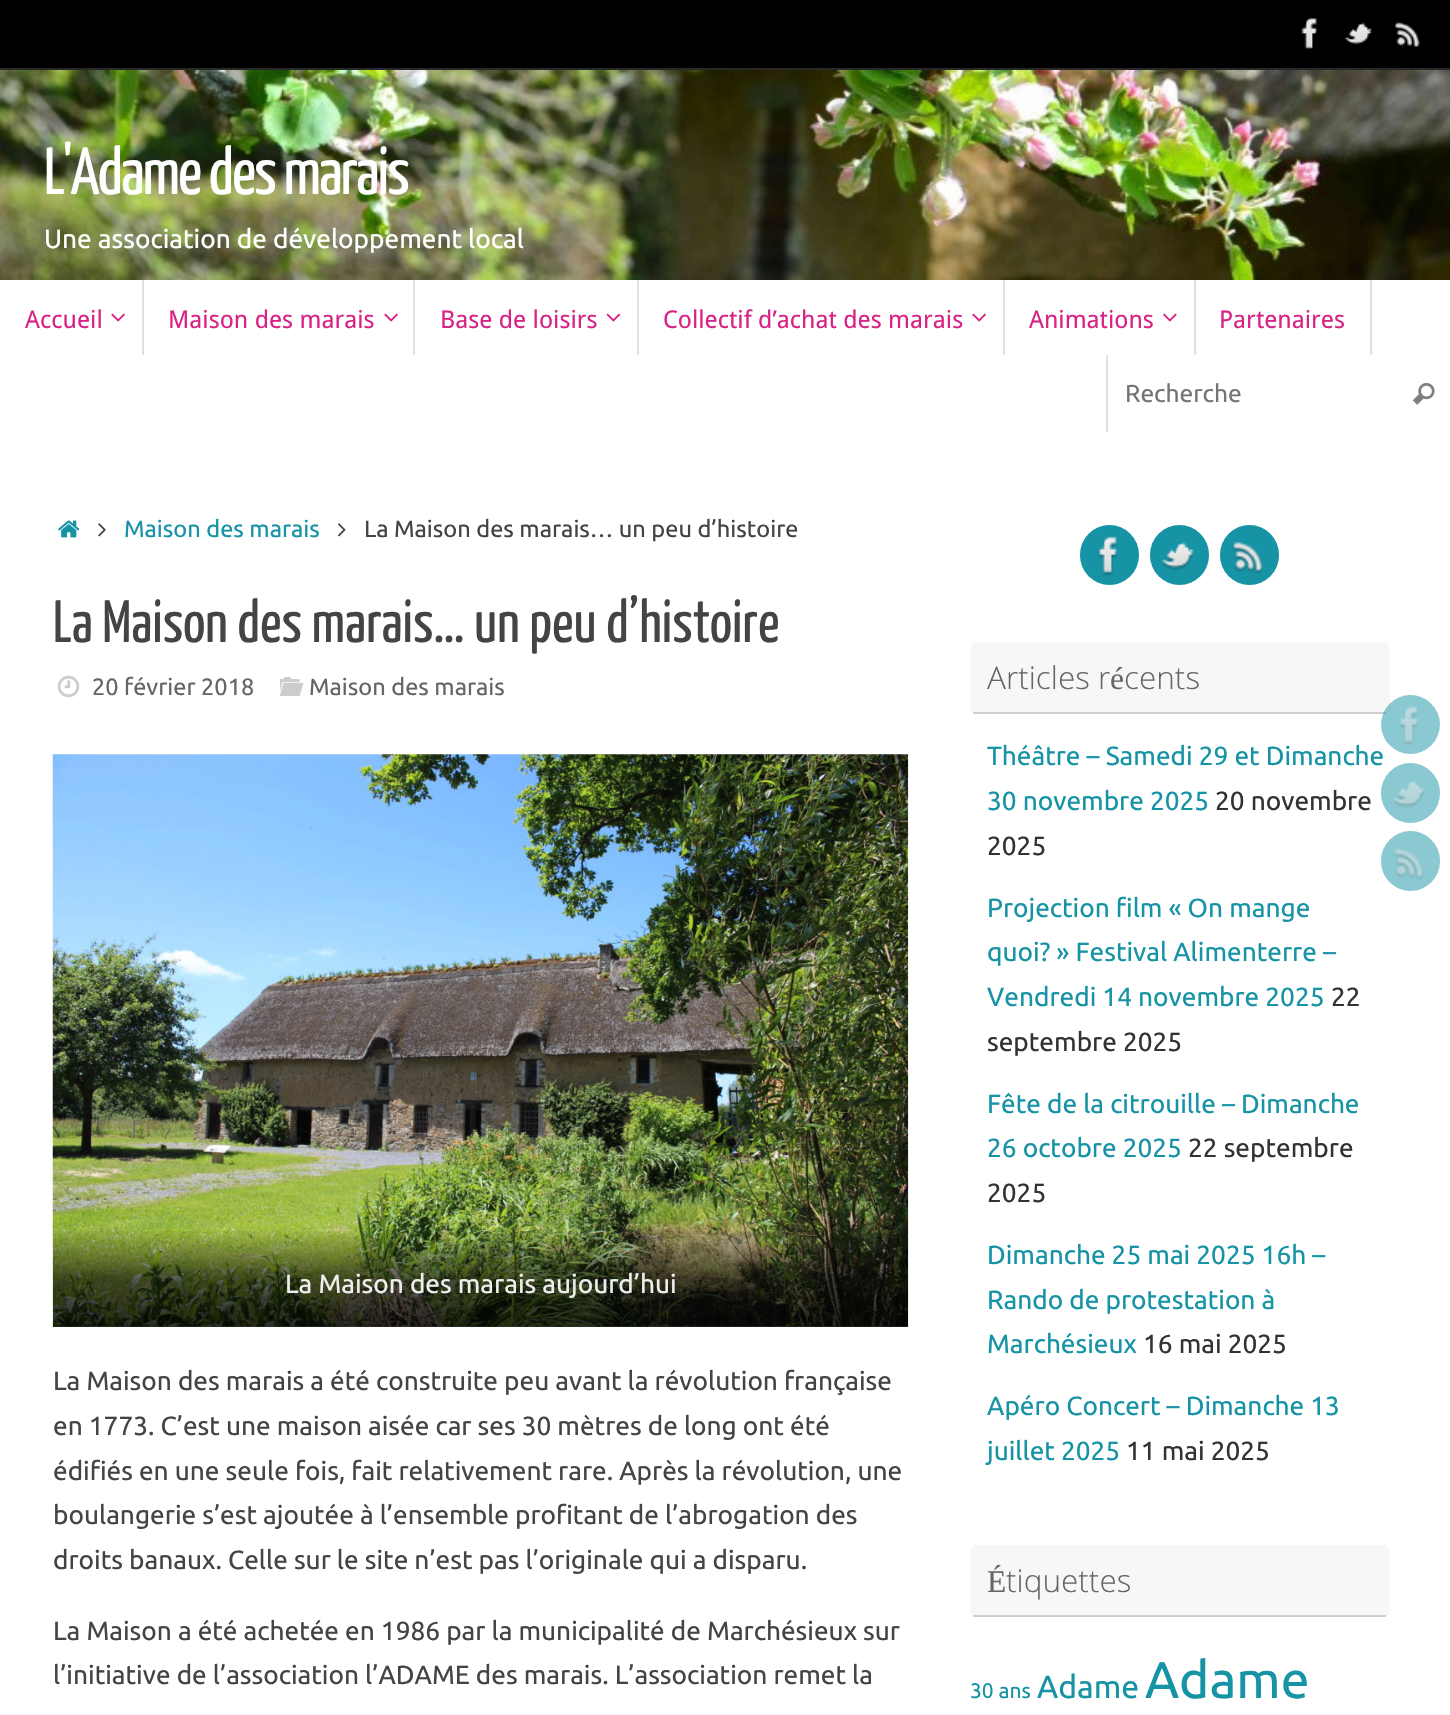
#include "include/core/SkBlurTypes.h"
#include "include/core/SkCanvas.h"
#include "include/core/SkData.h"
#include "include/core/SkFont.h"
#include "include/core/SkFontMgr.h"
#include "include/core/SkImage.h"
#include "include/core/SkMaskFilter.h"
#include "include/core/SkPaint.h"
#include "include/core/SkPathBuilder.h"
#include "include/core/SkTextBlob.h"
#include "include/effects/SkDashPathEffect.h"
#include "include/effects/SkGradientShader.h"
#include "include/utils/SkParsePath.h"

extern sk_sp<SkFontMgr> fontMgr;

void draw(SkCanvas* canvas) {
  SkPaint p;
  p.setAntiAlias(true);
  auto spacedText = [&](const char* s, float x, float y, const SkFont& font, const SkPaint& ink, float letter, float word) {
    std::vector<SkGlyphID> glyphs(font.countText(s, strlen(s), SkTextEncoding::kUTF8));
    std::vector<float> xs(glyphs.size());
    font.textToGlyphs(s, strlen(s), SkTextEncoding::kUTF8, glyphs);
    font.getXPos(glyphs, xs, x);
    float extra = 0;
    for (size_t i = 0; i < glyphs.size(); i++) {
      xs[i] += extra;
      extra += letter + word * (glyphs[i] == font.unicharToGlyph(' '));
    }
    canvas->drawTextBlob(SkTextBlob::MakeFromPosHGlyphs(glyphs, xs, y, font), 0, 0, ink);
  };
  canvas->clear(SK_ColorWHITE);
  p.setColor(SK_ColorBLACK);
  canvas->drawRect(SkRect::MakeLTRB(0, 0, 1450, 68), p);
  p.setColor(SkColorSetRGB(40, 40, 40));
  canvas->drawRect(SkRect::MakeLTRB(0, 68, 1450, 70), p);
  canvas->drawImageRect(SkImages::DeferredFromEncodedData(SkData::MakeFromFileName("images/1.png")), SkRect::MakeLTRB(1301, 18, 1317, 49), SkSamplingOptions());
  canvas->drawImageRect(SkImages::DeferredFromEncodedData(SkData::MakeFromFileName("images/2.png")), SkRect::MakeLTRB(1344, 22, 1372, 44), SkSamplingOptions());
  canvas->drawImageRect(SkImages::DeferredFromEncodedData(SkData::MakeFromFileName("images/3.png")), SkRect::MakeLTRB(1395, 22, 1420, 47), SkSamplingOptions());
  canvas->drawImageRect(SkImages::DeferredFromEncodedData(SkData::MakeFromFileName("images/4.png")), SkRect::MakeLTRB(0, 70, 1450, 280), SkSamplingOptions());
  p.setColor(SkColorSetRGB(225, 225, 225));
  canvas->drawRect(SkRect::MakeLTRB(142, 280, 144, 355), p);
  canvas->drawImageRect(SkImages::DeferredFromEncodedData(SkData::MakeFromFileName("images/5.png")), SkRect::MakeLTRB(111, 313, 125, 322), SkSamplingOptions());
  canvas->drawRect(SkRect::MakeLTRB(413, 280, 415, 355), p);
  canvas->drawImageRect(SkImages::DeferredFromEncodedData(SkData::MakeFromFileName("images/5.png")), SkRect::MakeLTRB(384, 313, 398, 322), SkSamplingOptions());
  canvas->drawRect(SkRect::MakeLTRB(637, 280, 639, 355), p);
  canvas->drawImageRect(SkImages::DeferredFromEncodedData(SkData::MakeFromFileName("images/6.png")), SkRect::MakeLTRB(606, 313, 621, 322), SkSamplingOptions());
  canvas->drawRect(SkRect::MakeLTRB(1003, 280, 1005, 355), p);
  canvas->drawImageRect(SkImages::DeferredFromEncodedData(SkData::MakeFromFileName("images/5.png")), SkRect::MakeLTRB(972, 313, 986, 322), SkSamplingOptions());
  canvas->drawRect(SkRect::MakeLTRB(1194, 280, 1196, 355), p);
  canvas->drawImageRect(SkImages::DeferredFromEncodedData(SkData::MakeFromFileName("images/7.png")), SkRect::MakeLTRB(1163, 313, 1177, 322), SkSamplingOptions());
  canvas->drawRect(SkRect::MakeLTRB(1370, 280, 1372, 355), p);
  canvas->drawRect(SkRect::MakeLTRB(1106, 355, 1108, 432), p);
  canvas->drawImageRect(SkImages::DeferredFromEncodedData(SkData::MakeFromFileName("images/8.png")), SkRect::MakeLTRB(1412, 383, 1435, 405), SkSamplingOptions());
  canvas->drawImageRect(SkImages::DeferredFromEncodedData(SkData::MakeFromFileName("images/9.png")), SkRect::MakeLTRB(58, 520, 80, 538), SkSamplingOptions());
  canvas->drawImageRect(SkImages::DeferredFromEncodedData(SkData::MakeFromFileName("images/10.png")), SkRect::MakeLTRB(98, 523, 106, 537), SkSamplingOptions());
  canvas->drawImageRect(SkImages::DeferredFromEncodedData(SkData::MakeFromFileName("images/11.png")), SkRect::MakeLTRB(338, 523, 346, 537), SkSamplingOptions());
  canvas->drawImageRect(SkImages::DeferredFromEncodedData(SkData::MakeFromFileName("images/12.png")), SkRect::MakeLTRB(57, 675, 80, 698), SkSamplingOptions());
  canvas->drawImageRect(SkImages::DeferredFromEncodedData(SkData::MakeFromFileName("images/13.png")), SkRect::MakeLTRB(280, 677, 304, 696), SkSamplingOptions());
  canvas->drawImageRect(SkImages::DeferredFromEncodedData(SkData::MakeFromFileName("images/14.png")), SkRect::MakeLTRB(52, 754, 909, 1327), SkSamplingOptions());
  {
    const SkColor colors[] = {SkColorSetARGB(0, 0, 0, 0), SkColorSetARGB(153, 0, 0, 0), SkColorSetARGB(204, 0, 0, 0)};
    const float stops[] = {0, 0.5f, 1};
    const SkPoint ends[] = {{480, 1229}, {480, 1327}};
    p.setShader(SkGradientShader::MakeLinear(ends, colors, stops, 3, SkTileMode::kClamp));
    p.setAlpha(255);
  }
  canvas->drawRect(SkRect::MakeLTRB(53, 1231, 908, 1327), p);
  p.setShader(nullptr);
  p.setColor(SkColorSetRGB(22, 147, 165));
  canvas->drawRoundRect(SkRect::MakeLTRB(1080, 525, 1139, 585), 29.5f, 29.5f, p);
  canvas->drawImageRect(SkImages::DeferredFromEncodedData(SkData::MakeFromFileName("images/15.png")), SkRect::MakeLTRB(1097, 536, 1118, 576), SkSamplingOptions());
  canvas->drawRoundRect(SkRect::MakeLTRB(1150, 525, 1209, 585), 29.5f, 29.5f, p);
  canvas->drawImageRect(SkImages::DeferredFromEncodedData(SkData::MakeFromFileName("images/16.png")), SkRect::MakeLTRB(1161, 542, 1194, 570), SkSamplingOptions());
  canvas->drawRoundRect(SkRect::MakeLTRB(1220, 525, 1279, 585), 29.5f, 29.5f, p);
  canvas->drawImageRect(SkImages::DeferredFromEncodedData(SkData::MakeFromFileName("images/17.png")), SkRect::MakeLTRB(1232, 542, 1263, 574), SkSamplingOptions());
  p.setColor(SkColorSetRGB(247, 247, 247));
  canvas->drawRoundRect(SkRect::MakeLTRB(970, 642, 1390, 714), 7, 7, p);
  p.setColor(SkColorSetRGB(207, 207, 207));
  canvas->drawRect(SkRect::MakeLTRB(973, 712, 1386, 714), p);
  p.setColor(SkColorSetRGB(247, 247, 247));
  canvas->drawRoundRect(SkRect::MakeLTRB(970, 1545, 1390, 1617), 7, 7, p);
  p.setColor(SkColorSetRGB(207, 207, 207));
  canvas->drawRect(SkRect::MakeLTRB(973, 1615, 1386, 1617), p);
  p.setColor(SkColorSetRGB(139, 201, 210));
  canvas->drawRoundRect(SkRect::MakeLTRB(1381, 831, 1440, 891), 29.5f, 29.5f, p);
  canvas->drawImageRect(SkImages::DeferredFromEncodedData(SkData::MakeFromFileName("images/20.png")), SkRect::MakeLTRB(1393, 848, 1424, 880), SkSamplingOptions());
  SkFont font1(fontMgr->matchFamilyStyle("Yanone Kaffeesatz", SkFontStyle::Normal()), 66.5f);
  font1.setSubpixel(true);
  p.setColor(SK_ColorWHITE);
  spacedText("L'Adame des marais", 44, 194, font1, p, -2, 0);
  SkFont font2(fontMgr->matchFamilyStyle("Ubuntu", SkFontStyle::Normal()), 26.25f);
  font2.setSubpixel(true);
  canvas->drawString("Une association de développement local", 44, 248, font2, p);
  SkFont font3(fontMgr->matchFamilyStyle("Droid Sans", SkFontStyle::Normal()), 24.5f);
  font3.setSubpixel(true);
  p.setColor(SkColorSetRGB(216, 34, 134));
  canvas->drawString("Accueil", 25, 328, font3, p);
  canvas->drawString("Maison des marais", 168, 328, font3, p);
  canvas->drawString("Base de loisirs", 440, 328, font3, p);
  canvas->drawString("Collectif d’achat des marais", 663, 328, font3, p);
  canvas->drawString("Animations", 1029, 328, font3, p);
  canvas->drawString("Partenaires", 1219, 328, font3, p);
  SkFont font4(fontMgr->matchFamilyStyle("Ubuntu", SkFontStyle::Normal()), 24.5f);
  font4.setSubpixel(true);
  p.setColor(SkColorSetRGB(117, 117, 117));
  canvas->drawString("Recherche", 1125, 402, font4, p);
  SkFont font5(fontMgr->matchFamilyStyle("Ubuntu", SkFontStyle::Normal()), 23.6f);
  font5.setSubpixel(true);
  p.setColor(SkColorSetRGB(22, 147, 165));
  canvas->drawString("Maison des marais", 124, 537, font5, p);
  p.setColor(SkColorSetRGB(68, 68, 68));
  canvas->drawString("La Maison des marais… un peu d’histoire", 364, 537, font5, p);
  SkFont font6(fontMgr->matchFamilyStyle("Yanone Kaffeesatz", SkFontStyle::Normal()), 59.5f);
  font6.setSubpixel(true);
  canvas->drawString("La Maison des marais… un peu d’histoire", 53, 642, font6, p);
  p.setColor(SkColorSetRGB(102, 102, 102));
  canvas->drawString("20 février 2018", 92, 695, font5, p);
  canvas->drawString("Maison des marais", 309, 695, font5, p);
  p.setColor(SkColorSetRGB(238, 238, 238));
  canvas->drawString("La Maison des marais aujourd’hui", 285, 1293, font2, p);
  p.setColor(SkColorSetRGB(68, 68, 68));
  canvas->drawString("La Maison des marais a été construite peu avant la révolution française", 53, 1390, font2, p);
  canvas->drawString("en 1773. C’est une maison aisée car ses 30 mètres de long ont été", 53, 1435, font2, p);
  canvas->drawString("édifiés en une seule fois, fait relativement rare. Après la révolution, une", 53, 1480, font2, p);
  canvas->drawString("boulangerie s’est ajoutée à l’ensemble profitant de l’abrogation des", 53, 1524, font2, p);
  canvas->drawString("droits banaux. Celle sur le site n’est pas l’originale qui a disparu.", 53, 1569, font2, p);
  canvas->drawString("La Maison a été achetée en 1986 par la municipalité de Marchésieux sur", 53, 1640, font2, p);
  canvas->drawString("l’initiative de l’association l’ADAME des marais. L’association remet la", 53, 1684, font2, p);
  SkFont font7(fontMgr->matchFamilyStyle("Open Sans", SkFontStyle(300, SkFontStyle::kNormal_Width, SkFontStyle::kUpright_Slant)), 31.5f);
  font7.setSubpixel(true);
  p.setColor(SkColorSetRGB(102, 102, 102));
  canvas->drawString("Articles r", 987, 689, font7, p);
  SkFont font8(fontMgr->matchFamilyStyle("Liberation Serif", SkFontStyle::Normal()), 31.5f);
  font8.setSubpixel(true);
  canvas->drawString("é", 1110, 689, font8, p);
  canvas->drawString("cents", 1124, 689, font7, p);
  p.setColor(SkColorSetRGB(22, 147, 165));
  canvas->drawString("Théâtre – Samedi 29 et Dimanche", 987, 765, font2, p);
  canvas->drawString("30 novembre 2025", 987, 810, font2, p);
  p.setColor(SkColorSetRGB(51, 51, 51));
  canvas->drawString("20 novembre", 1215, 810, font2, p);
  canvas->drawString("2025", 987, 855, font2, p);
  p.setColor(SkColorSetRGB(22, 147, 165));
  canvas->drawString("Projection film « On mange", 987, 917, font2, p);
  canvas->drawString("quoi? » Festival Alimenterre –", 987, 961, font2, p);
  canvas->drawString("Vendredi 14 novembre 2025", 987, 1006, font2, p);
  p.setColor(SkColorSetRGB(51, 51, 51));
  canvas->drawString("22", 1331, 1006, font2, p);
  canvas->drawString("septembre 2025", 987, 1051, font2, p);
  p.setColor(SkColorSetRGB(22, 147, 165));
  canvas->drawString("Fête de la citrouille – Dimanche", 987, 1113, font2, p);
  canvas->drawString("26 octobre 2025", 987, 1157, font2, p);
  p.setColor(SkColorSetRGB(51, 51, 51));
  canvas->drawString("22 septembre", 1188, 1157, font2, p);
  canvas->drawString("2025", 987, 1202, font2, p);
  p.setColor(SkColorSetRGB(22, 147, 165));
  canvas->drawString("Dimanche 25 mai 2025 16h –", 987, 1264, font2, p);
  canvas->drawString("Rando de protestation à", 987, 1309, font2, p);
  canvas->drawString("Marchésieux", 987, 1353, font2, p);
  p.setColor(SkColorSetRGB(51, 51, 51));
  canvas->drawString("16 mai 2025", 1143, 1353, font2, p);
  p.setColor(SkColorSetRGB(22, 147, 165));
  canvas->drawString("Apéro Concert – Dimanche 13", 987, 1415, font2, p);
  canvas->drawString("juillet 2025", 987, 1460, font2, p);
  p.setColor(SkColorSetRGB(51, 51, 51));
  canvas->drawString("11 mai 2025", 1126, 1460, font2, p);
  p.setColor(SkColorSetRGB(102, 102, 102));
  canvas->drawString("É", 987, 1592, font8, p);
  canvas->drawString("tiquettes", 1006, 1592, font7, p);
  SkFont font9(fontMgr->matchFamilyStyle("Ubuntu", SkFontStyle::Normal()), 21);
  font9.setSubpixel(true);
  p.setColor(SkColorSetRGB(22, 147, 165));
  canvas->drawString("30 ans", 970, 1698, font9, p);
  SkFont font10(fontMgr->matchFamilyStyle("Ubuntu", SkFontStyle::Normal()), 32);
  font10.setSubpixel(true);
  canvas->drawString("Adame", 1037, 1698, font10, p);
  SkFont font11(fontMgr->matchFamilyStyle("Ubuntu", SkFontStyle::Normal()), 51.5f);
  font11.setSubpixel(true);
  canvas->drawString("Adame", 1145, 1698, font11, p);
  p.setColor(SkColorSetARGB(128, 22, 147, 165));
  canvas->drawCircle(1410.5f, 724.5f, 29.5f, p);
  canvas->drawImageRect(SkImages::DeferredFromEncodedData(SkData::MakeFromFileName("images/18.png")), SkRect::MakeLTRB(1399, 706, 1419, 745), SkSamplingOptions());
  p.setColor(SkColorSetRGB(139, 201, 210));
  canvas->drawRoundRect(SkRect::MakeLTRB(1381, 763, 1440, 823), 29.5f, 29.5f, p);
  canvas->drawImageRect(SkImages::DeferredFromEncodedData(SkData::MakeFromFileName("images/19.png")), SkRect::MakeLTRB(1393, 780, 1425, 808), SkSamplingOptions());
}
